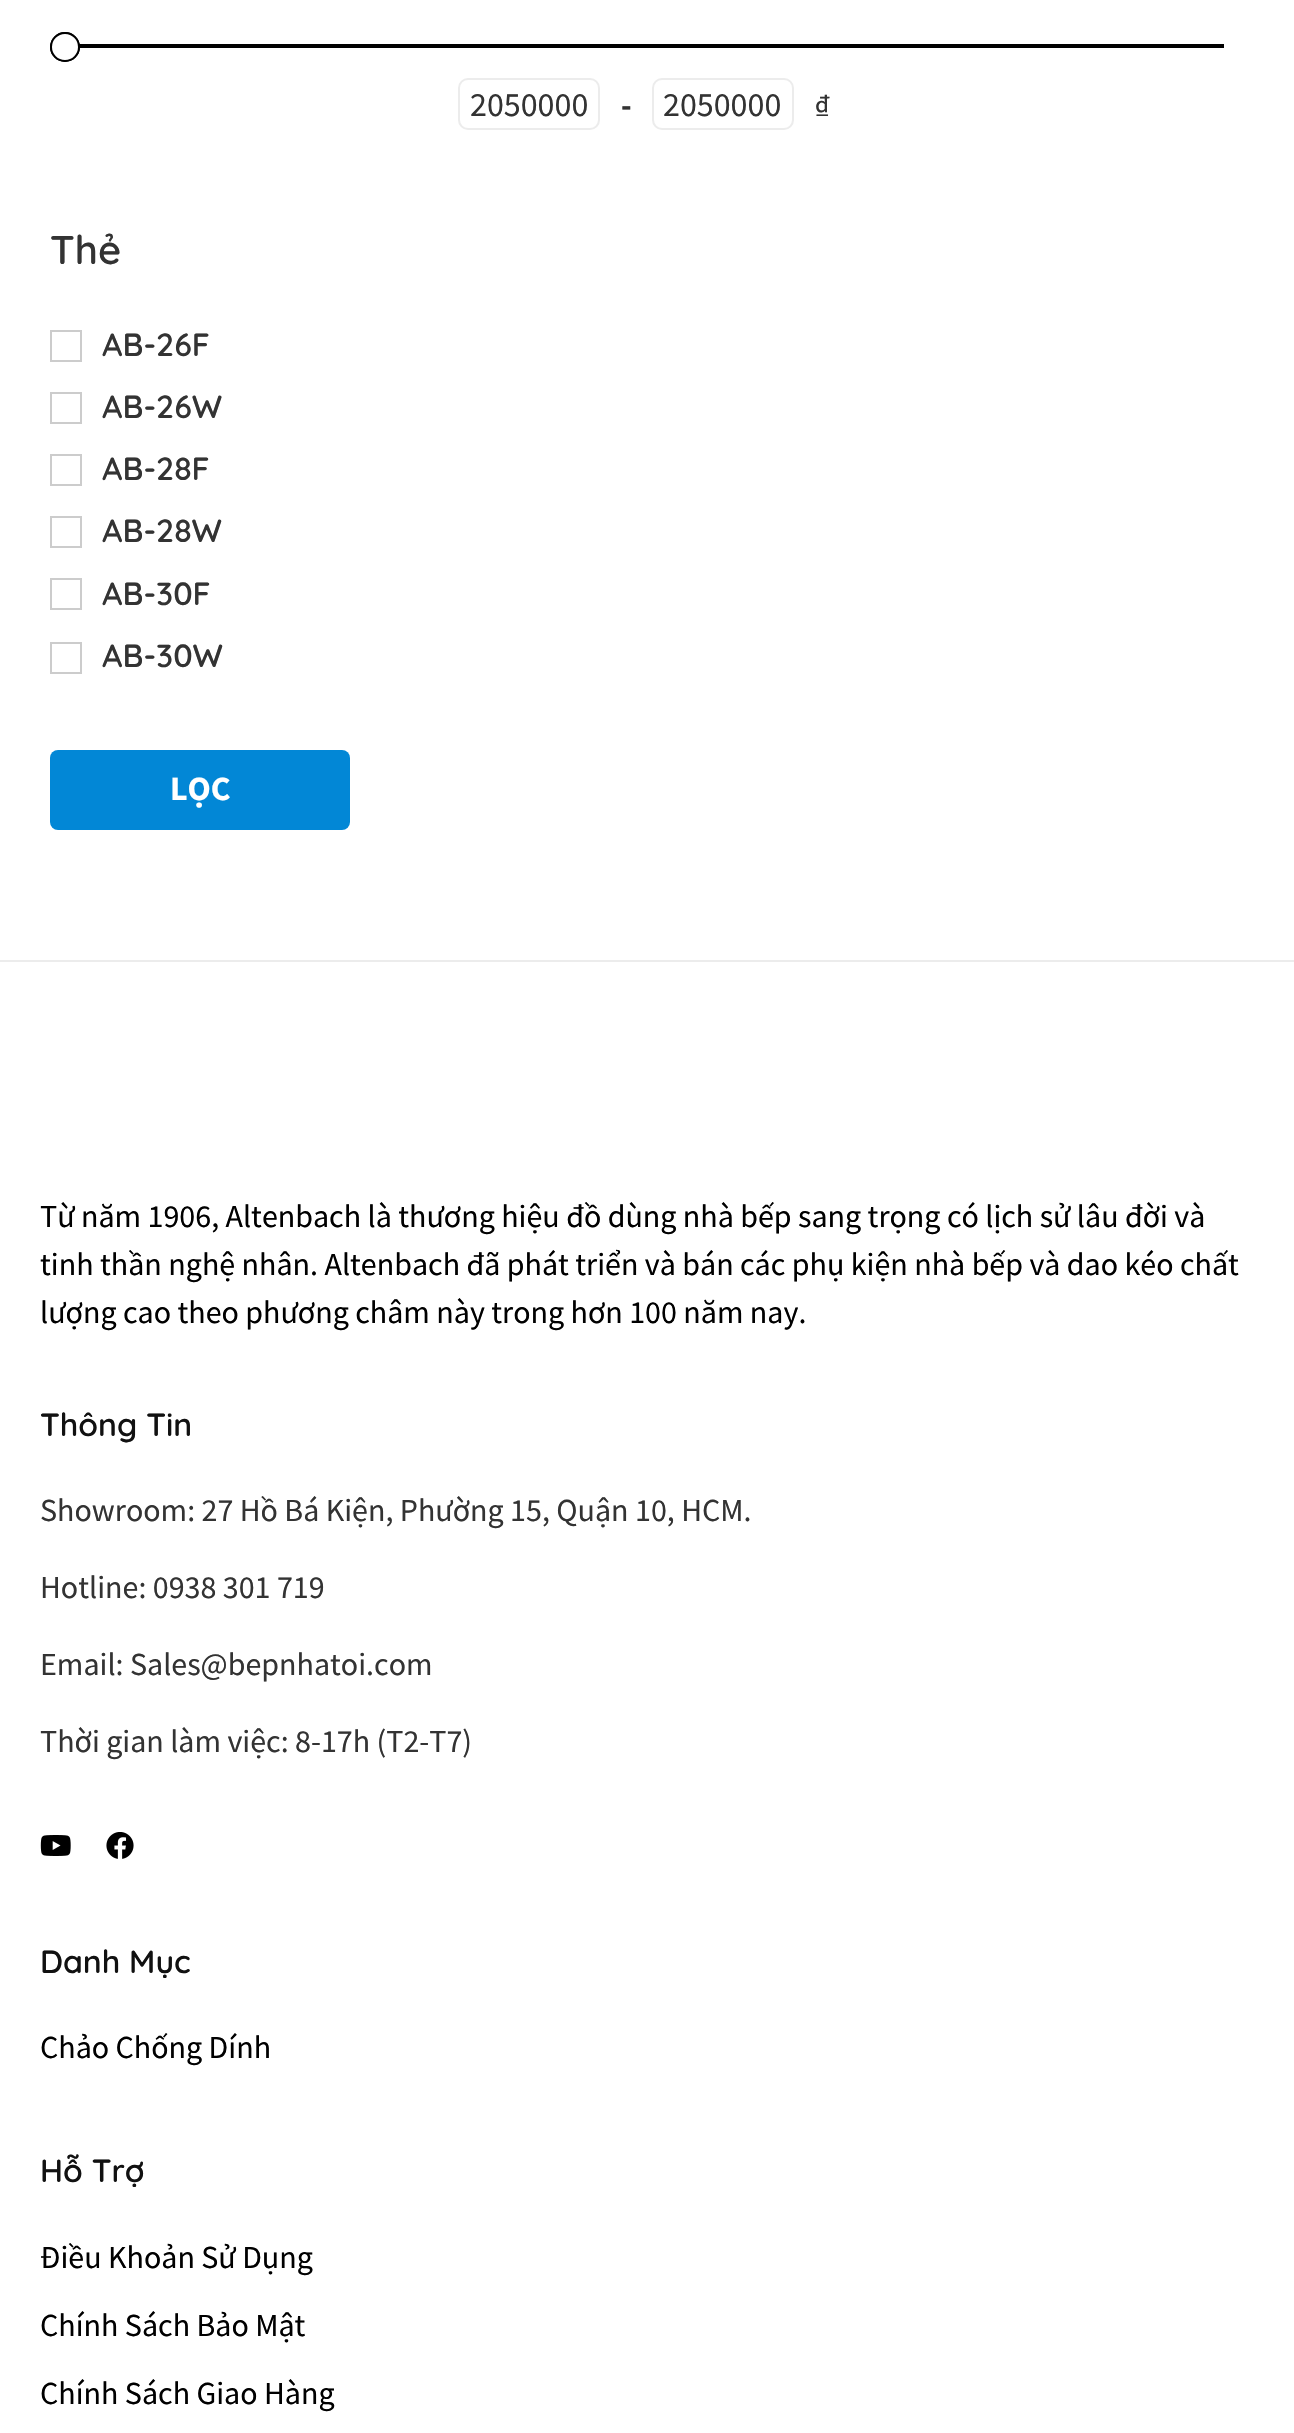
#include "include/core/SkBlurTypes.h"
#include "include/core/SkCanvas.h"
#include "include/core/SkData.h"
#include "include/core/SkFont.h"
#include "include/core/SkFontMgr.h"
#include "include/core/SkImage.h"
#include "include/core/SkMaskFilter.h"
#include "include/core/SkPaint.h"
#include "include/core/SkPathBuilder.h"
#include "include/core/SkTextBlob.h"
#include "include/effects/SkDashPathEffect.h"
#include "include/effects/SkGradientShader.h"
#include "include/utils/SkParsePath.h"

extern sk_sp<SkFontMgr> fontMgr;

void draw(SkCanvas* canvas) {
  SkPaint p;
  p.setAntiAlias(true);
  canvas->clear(SK_ColorWHITE);
  p.setColor(SK_ColorBLACK);
  canvas->drawRect(SkRect::MakeLTRB(79, 44, 1224, 48), p);
  p.setStyle(SkPaint::kStroke_Style);
  p.setStrokeWidth(2);
  canvas->drawCircle(65, 47, 14, p);
  p.setStyle(SkPaint::kFill_Style);
  p.setColor(SK_ColorWHITE);
  canvas->drawCircle(65, 47, 14, p);
  p.setStyle(SkPaint::kStroke_Style);
  p.setColor(SK_ColorBLACK);
  canvas->drawCircle(65, 47, 14, p);
  p.setColor(SkColorSetRGB(236, 236, 236));
  canvas->drawRoundRect(SkRect::MakeLTRB(459, 79, 599, 129), 9, 9, p);
  canvas->drawRoundRect(SkRect::MakeLTRB(653, 79, 793, 129), 9, 9, p);
  p.setColor(SkColorSetRGB(204, 204, 204));
  canvas->drawRect(SkRect::MakeLTRB(51, 331, 81, 361), p);
  canvas->drawRect(SkRect::MakeLTRB(51, 393, 81, 423), p);
  canvas->drawRect(SkRect::MakeLTRB(51, 455, 81, 485), p);
  canvas->drawRect(SkRect::MakeLTRB(51, 517, 81, 547), p);
  canvas->drawRect(SkRect::MakeLTRB(51, 579, 81, 609), p);
  canvas->drawRect(SkRect::MakeLTRB(51, 643, 81, 673), p);
  p.setStyle(SkPaint::kFill_Style);
  p.setColor(SkColorSetRGB(2, 135, 214));
  canvas->drawRoundRect(SkRect::MakeLTRB(50, 750, 350, 830), 8, 8, p);
  p.setColor(SkColorSetRGB(236, 236, 236));
  canvas->drawRect(SkRect::MakeLTRB(0, 960, 1294, 962), p);
  canvas->drawImageRect(SkImages::DeferredFromEncodedData(SkData::MakeFromFileName("images/1.png")), SkRect::MakeLTRB(40, 1835, 71, 1856), SkSamplingOptions());
  canvas->drawImageRect(SkImages::DeferredFromEncodedData(SkData::MakeFromFileName("images/2.png")), SkRect::MakeLTRB(106, 1832, 134, 1859), SkSamplingOptions());
  SkFont font1(fontMgr->matchFamilyStyle("Source Sans Pro", SkFontStyle::Normal()), 34);
  font1.setSubpixel(true);
  p.setColor(SkColorSetRGB(51, 51, 51));
  canvas->drawString("2050000", 470, 116, font1, p);
  SkFont font2(fontMgr->matchFamilyStyle("Source Sans Pro", SkFontStyle::Bold()), 32);
  font2.setSubpixel(true);
  canvas->drawString("-", 621, 116, font2, p);
  canvas->drawString("2050000", 663, 116, font1, p);
  SkFont font3(fontMgr->matchFamilyStyle("Source Sans Pro", SkFontStyle::Normal()), 32);
  font3.setSubpixel(true);
  canvas->drawString("₫", 814, 116, font3, p);
  SkFont font4(fontMgr->matchFamilyStyle("Quicksand", SkFontStyle(600, SkFontStyle::kNormal_Width, SkFontStyle::kUpright_Slant)), 40);
  font4.setSubpixel(true);
  canvas->drawString("Thẻ", 50, 264, font4, p);
  SkFont font5(fontMgr->matchFamilyStyle("Quicksand", SkFontStyle(600, SkFontStyle::kNormal_Width, SkFontStyle::kUpright_Slant)), 32);
  font5.setSubpixel(true);
  canvas->drawString("AB-26F", 102, 356, font5, p);
  canvas->drawString("AB-26W", 102, 418, font5, p);
  canvas->drawString("AB-28F", 102, 480, font5, p);
  canvas->drawString("AB-28W", 102, 542, font5, p);
  canvas->drawString("AB-30F", 102, 605, font5, p);
  canvas->drawString("AB-30W", 102, 667, font5, p);
  SkFont font6(fontMgr->matchFamilyStyle("Source Sans Pro", SkFontStyle::Bold()), 34);
  font6.setSubpixel(true);
  p.setColor(SK_ColorWHITE);
  canvas->drawString("LỌC", 170, 800, font6, p);
  p.setColor(SK_ColorBLACK);
  canvas->drawString("Từ năm 1906, Altenbach là thương hiệu đồ dùng nhà bếp sang trọng có lịch sử lâu đời và", 40, 1227, font3, p);
  canvas->drawString("tinh thần nghệ nhân. Altenbach đã phát triển và bán các phụ kiện nhà bếp và dao kéo chất", 40, 1275, font3, p);
  canvas->drawString("lượng cao theo phương châm này trong hơn 100 năm nay.", 40, 1323, font3, p);
  p.setColor(SkColorSetRGB(17, 17, 17));
  canvas->drawString("Thông Tin", 40, 1436, font5, p);
  p.setColor(SkColorSetRGB(51, 51, 51));
  canvas->drawString("Showroom: 27 Hồ Bá Kiện, Phường 15, Quận 10, HCM.", 40, 1521, font3, p);
  canvas->drawString("Hotline: 0938 301 719", 40, 1598, font3, p);
  canvas->drawString("Email: Sales@bepnhatoi.com", 40, 1675, font3, p);
  canvas->drawString("Thời gian làm việc: 8-17h (T2-T7)", 40, 1752, font3, p);
  p.setColor(SkColorSetRGB(17, 17, 17));
  canvas->drawString("Danh Mục", 40, 1973, font5, p);
  p.setColor(SK_ColorBLACK);
  canvas->drawString("Chảo Chống Dính", 40, 2058, font3, p);
  p.setColor(SkColorSetRGB(17, 17, 17));
  canvas->drawString("Hỗ Trợ", 40, 2182, font5, p);
  p.setColor(SK_ColorBLACK);
  canvas->drawString("Điều Khoản Sử Dụng", 40, 2268, font3, p);
  canvas->drawString("Chính Sách Bảo Mật", 40, 2336, font3, p);
  canvas->drawString("Chính Sách Giao Hàng", 40, 2404, font3, p);
}
